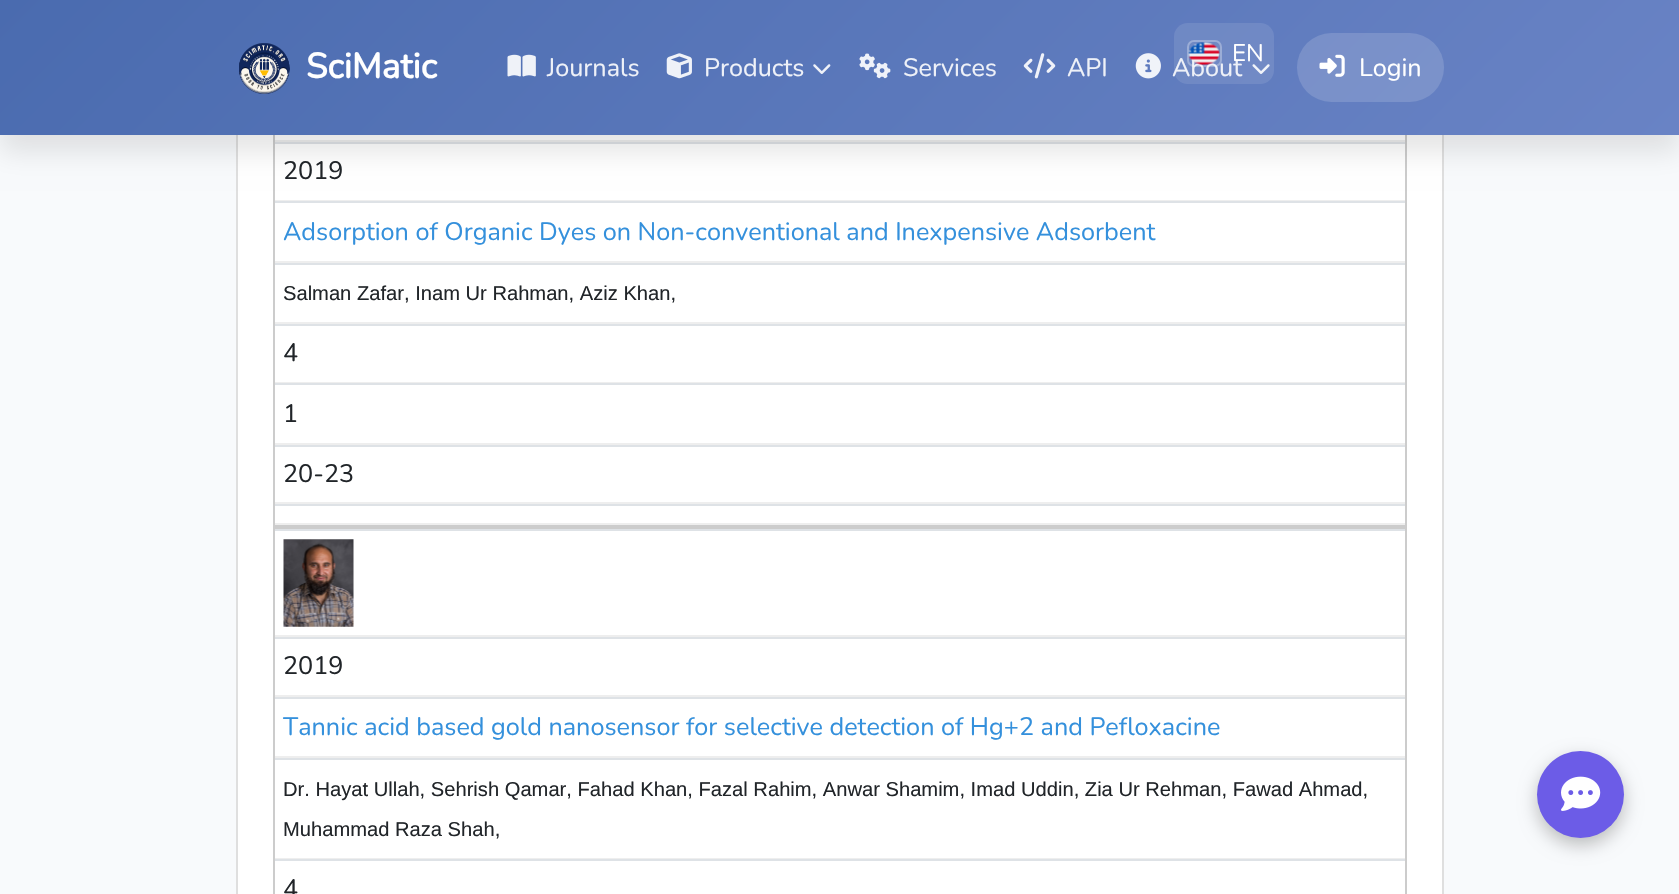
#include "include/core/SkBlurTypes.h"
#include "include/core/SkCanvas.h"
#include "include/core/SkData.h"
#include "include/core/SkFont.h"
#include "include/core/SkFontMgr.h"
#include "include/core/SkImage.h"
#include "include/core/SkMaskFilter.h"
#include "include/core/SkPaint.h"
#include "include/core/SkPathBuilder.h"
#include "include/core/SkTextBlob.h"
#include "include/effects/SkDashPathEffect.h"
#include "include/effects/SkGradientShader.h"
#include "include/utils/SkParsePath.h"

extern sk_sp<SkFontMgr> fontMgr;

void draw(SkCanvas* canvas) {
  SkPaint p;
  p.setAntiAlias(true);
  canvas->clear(SkColorSetRGB(248, 250, 252));
  p.setColor(SK_ColorWHITE);
  canvas->drawRect(SkRect::MakeLTRB(238, 135, 1442, 894), p);
  p.setStyle(SkPaint::kStroke_Style);
  p.setStrokeWidth(2);
  p.setColor(SkColorSetRGB(223, 223, 223));
  canvas->drawRect(SkRect::MakeLTRB(237, -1, 1443, 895), p);
  p.setColor(SkColorSetRGB(204, 204, 204));
  canvas->drawRect(SkRect::MakeLTRB(274, 50, 1406, 526), p);
  p.setStyle(SkPaint::kFill_Style);
  p.setColor(SkColorSetRGB(238, 238, 238));
  canvas->drawRect(SkRect::MakeLTRB(275, 140, 1405, 142), p);
  p.setColor(SkColorSetRGB(222, 226, 230));
  canvas->drawRect(SkRect::MakeLTRB(275, 142, 1405, 144), p);
  p.setColor(SkColorSetARGB(26, 0, 0, 0));
  p.setMaskFilter(SkMaskFilter::MakeBlur(kNormal_SkBlurStyle, 13));
  canvas->drawRect(SkRect::MakeLTRB(0, 18, 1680, 152), p);
  p.setMaskFilter(nullptr);
  {
    const SkColor colors[] = {SkColorSetRGB(74, 107, 175), SkColorSetRGB(105, 131, 197)};
    const float stops[] = {0, 1};
    const SkPoint ends[] = {{386, -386}, {1294, 521}};
    p.setShader(SkGradientShader::MakeLinear(ends, colors, stops, 2, SkTileMode::kClamp));
    p.setAlpha(255);
  }
  canvas->drawRect(SkRect::MakeLTRB(0, 0, 1679, 135), p);
  canvas->drawImageRect(SkImages::DeferredFromEncodedData(SkData::MakeFromFileName("images/1.png")), SkRect::MakeLTRB(239, 43, 290, 94), SkSamplingOptions());
  canvas->drawImageRect(SkImages::DeferredFromEncodedData(SkData::MakeFromFileName("images/2.png")), SkRect::MakeLTRB(507, 54, 536, 77), SkSamplingOptions());
  canvas->drawImageRect(SkImages::DeferredFromEncodedData(SkData::MakeFromFileName("images/3.png")), SkRect::MakeLTRB(666, 53, 692, 79), SkSamplingOptions());
  canvas->drawImageRect(SkImages::DeferredFromEncodedData(SkData::MakeFromFileName("images/4.png")), SkRect::MakeLTRB(813, 64, 831, 74), SkSamplingOptions());
  canvas->drawImageRect(SkImages::DeferredFromEncodedData(SkData::MakeFromFileName("images/5.png")), SkRect::MakeLTRB(859, 53, 891, 79), SkSamplingOptions());
  canvas->drawImageRect(SkImages::DeferredFromEncodedData(SkData::MakeFromFileName("images/6.png")), SkRect::MakeLTRB(1023, 53, 1056, 79), SkSamplingOptions());
  canvas->drawImageRect(SkImages::DeferredFromEncodedData(SkData::MakeFromFileName("images/7.png")), SkRect::MakeLTRB(1135, 53, 1161, 79), SkSamplingOptions());
  canvas->drawImageRect(SkImages::DeferredFromEncodedData(SkData::MakeFromFileName("images/8.png")), SkRect::MakeLTRB(1252, 64, 1270, 74), SkSamplingOptions());
  p.setShader(nullptr);
  p.setColor(SkColorSetARGB(26, 255, 255, 255));
  canvas->drawRoundRect(SkRect::MakeLTRB(1174, 23, 1274, 84), 14, 14, p);
  p.setColor(SkColorSetARGB(38, 255, 255, 255));
  canvas->drawRoundRect(SkRect::MakeLTRB(1297, 33, 1444, 102), 34.5f, 34.5f, p);
  canvas->drawImageRect(SkImages::DeferredFromEncodedData(SkData::MakeFromFileName("images/10.png")), SkRect::MakeLTRB(1319, 54, 1345, 77), SkSamplingOptions());
  p.setColor(SkColorSetRGB(238, 238, 238));
  canvas->drawRect(SkRect::MakeLTRB(275, 200, 1405, 201), p);
  p.setColor(SkColorSetRGB(222, 226, 230));
  canvas->drawRect(SkRect::MakeLTRB(275, 201, 1405, 203), p);
  p.setColor(SkColorSetRGB(238, 238, 238));
  canvas->drawRect(SkRect::MakeLTRB(275, 261, 1405, 263), p);
  p.setColor(SkColorSetRGB(222, 226, 230));
  canvas->drawRect(SkRect::MakeLTRB(275, 263, 1405, 265), p);
  p.setColor(SkColorSetRGB(238, 238, 238));
  canvas->drawRect(SkRect::MakeLTRB(275, 322, 1405, 324), p);
  p.setColor(SkColorSetRGB(222, 226, 230));
  canvas->drawRect(SkRect::MakeLTRB(275, 324, 1405, 326), p);
  p.setColor(SkColorSetRGB(238, 238, 238));
  canvas->drawRect(SkRect::MakeLTRB(275, 382, 1405, 383), p);
  p.setColor(SkColorSetRGB(222, 226, 230));
  canvas->drawRect(SkRect::MakeLTRB(275, 383, 1405, 385), p);
  p.setColor(SkColorSetRGB(238, 238, 238));
  canvas->drawRect(SkRect::MakeLTRB(275, 443, 1405, 445), p);
  p.setColor(SkColorSetRGB(222, 226, 230));
  canvas->drawRect(SkRect::MakeLTRB(275, 445, 1405, 447), p);
  p.setColor(SkColorSetRGB(238, 238, 238));
  canvas->drawRect(SkRect::MakeLTRB(275, 502, 1405, 504), p);
  p.setColor(SkColorSetRGB(222, 226, 230));
  canvas->drawRect(SkRect::MakeLTRB(275, 504, 1405, 506), p);
  p.setColor(SkColorSetRGB(238, 238, 238));
  canvas->drawRect(SkRect::MakeLTRB(275, 523, 1405, 525), p);
  p.setStyle(SkPaint::kStroke_Style);
  p.setColor(SkColorSetRGB(204, 204, 204));
  canvas->drawRect(SkRect::MakeLTRB(274, 528, 1406, 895), p);
  p.setStyle(SkPaint::kFill_Style);
  p.setColor(SkColorSetRGB(222, 226, 230));
  canvas->drawRect(SkRect::MakeLTRB(275, 529, 1405, 531), p);
  p.setColor(SkColorSetRGB(238, 238, 238));
  canvas->drawRect(SkRect::MakeLTRB(275, 635, 1405, 637), p);
  canvas->drawImageRect(SkImages::DeferredFromEncodedData(SkData::MakeFromFileName("images/11.png")), SkRect::MakeLTRB(283, 539, 354, 627), SkSamplingOptions());
  p.setColor(SkColorSetRGB(222, 226, 230));
  canvas->drawRect(SkRect::MakeLTRB(275, 637, 1405, 639), p);
  p.setColor(SkColorSetRGB(238, 238, 238));
  canvas->drawRect(SkRect::MakeLTRB(275, 695, 1405, 697), p);
  p.setColor(SkColorSetRGB(222, 226, 230));
  canvas->drawRect(SkRect::MakeLTRB(275, 697, 1405, 699), p);
  p.setColor(SkColorSetRGB(238, 238, 238));
  canvas->drawRect(SkRect::MakeLTRB(275, 756, 1405, 758), p);
  p.setColor(SkColorSetRGB(222, 226, 230));
  canvas->drawRect(SkRect::MakeLTRB(275, 758, 1405, 760), p);
  p.setColor(SkColorSetRGB(238, 238, 238));
  canvas->drawRect(SkRect::MakeLTRB(275, 858, 1405, 859), p);
  p.setColor(SkColorSetRGB(222, 226, 230));
  canvas->drawRect(SkRect::MakeLTRB(275, 859, 1405, 861), p);
  p.setColor(SkColorSetARGB(64, 0, 0, 0));
  p.setMaskFilter(SkMaskFilter::MakeBlur(kNormal_SkBlurStyle, 9));
  canvas->drawRoundRect(SkRect::MakeLTRB(1537, 758, 1624, 845), 43.5f, 43.5f, p);
  p.setMaskFilter(nullptr);
  p.setColor(SkColorSetRGB(108, 92, 231));
  canvas->drawCircle(1580.5f, 794.5f, 43.5f, p);
  canvas->drawImageRect(SkImages::DeferredFromEncodedData(SkData::MakeFromFileName("images/12.png")), SkRect::MakeLTRB(1561, 776, 1601, 811), SkSamplingOptions());
  SkFont font1(fontMgr->matchFamilyStyle("Nunito", SkFontStyle::Bold()), 35);
  font1.setSubpixel(true);
  p.setColor(SK_ColorWHITE);
  canvas->drawString("SciMatic", 306, 78, font1, p);
  SkFont font2(fontMgr->matchFamilyStyle("Nunito", SkFontStyle(200, SkFontStyle::kNormal_Width, SkFontStyle::kUpright_Slant)), 25.2f);
  font2.setSubpixel(true);
  p.setColor(SkColorSetRGB(238, 241, 248));
  canvas->drawString("Journals", 547, 76, font2, p);
  canvas->drawString("Products", 704, 76, font2, p);
  canvas->drawString("Services", 903, 76, font2, p);
  canvas->drawString("API", 1067, 76, font2, p);
  canvas->drawString("About", 1172, 76, font2, p);
  p.setStyle(SkPaint::kStroke_Style);
  p.setColor(SkColorSetARGB(77, 255, 255, 255));
  canvas->drawRoundRect(SkRect::MakeLTRB(1188, 41, 1221, 66), 6, 6, p);
  canvas->drawImageRect(SkImages::DeferredFromEncodedData(SkData::MakeFromFileName("images/9.png")), SkRect::MakeLTRB(1188, 42, 1220, 66), SkSamplingOptions());
  SkFont font3(fontMgr->matchFamilyStyle("Nunito", SkFontStyle(200, SkFontStyle::kNormal_Width, SkFontStyle::kUpright_Slant)), 24);
  font3.setSubpixel(true);
  p.setStyle(SkPaint::kFill_Style);
  p.setColor(SK_ColorWHITE);
  canvas->drawString("EN", 1232, 61, font3, p);
  canvas->drawString("Login", 1359, 76, font2, p);
  p.setColor(SkColorSetRGB(33, 37, 41));
  canvas->drawString("2019", 283, 179, font2, p);
  p.setColor(SkColorSetRGB(52, 144, 220));
  canvas->drawString("Adsorption of Organic Dyes on Non-conventional and Inexpensive Adsorbent", 283, 240, font2, p);
  SkFont font4(fontMgr->matchFamilyStyle("Liberation Sans", SkFontStyle::Normal()), 20.15f);
  font4.setSubpixel(true);
  p.setColor(SkColorSetRGB(33, 37, 41));
  canvas->drawString("Salman Zafar, Inam Ur Rahman, Aziz Khan,", 283, 300, font4, p);
  canvas->drawString("4", 283, 361, font2, p);
  canvas->drawString("1", 283, 422, font2, p);
  canvas->drawString("20-23", 283, 482, font2, p);
  canvas->drawString("2019", 283, 674, font2, p);
  p.setColor(SkColorSetRGB(52, 144, 220));
  canvas->drawString("Tannic acid based gold nanosensor for selective detection of Hg+2 and Pefloxacine", 283, 735, font2, p);
  p.setColor(SkColorSetRGB(33, 37, 41));
  canvas->drawString("Dr. Hayat Ullah, Sehrish Qamar, Fahad Khan, Fazal Rahim, Anwar Shamim, Imad Uddin, Zia Ur Rehman, Fawad Ahmad,", 283, 796, font4, p);
  canvas->drawString("Muhammad Raza Shah,", 283, 836, font4, p);
  canvas->drawString("4", 283, 897, font2, p);
}
